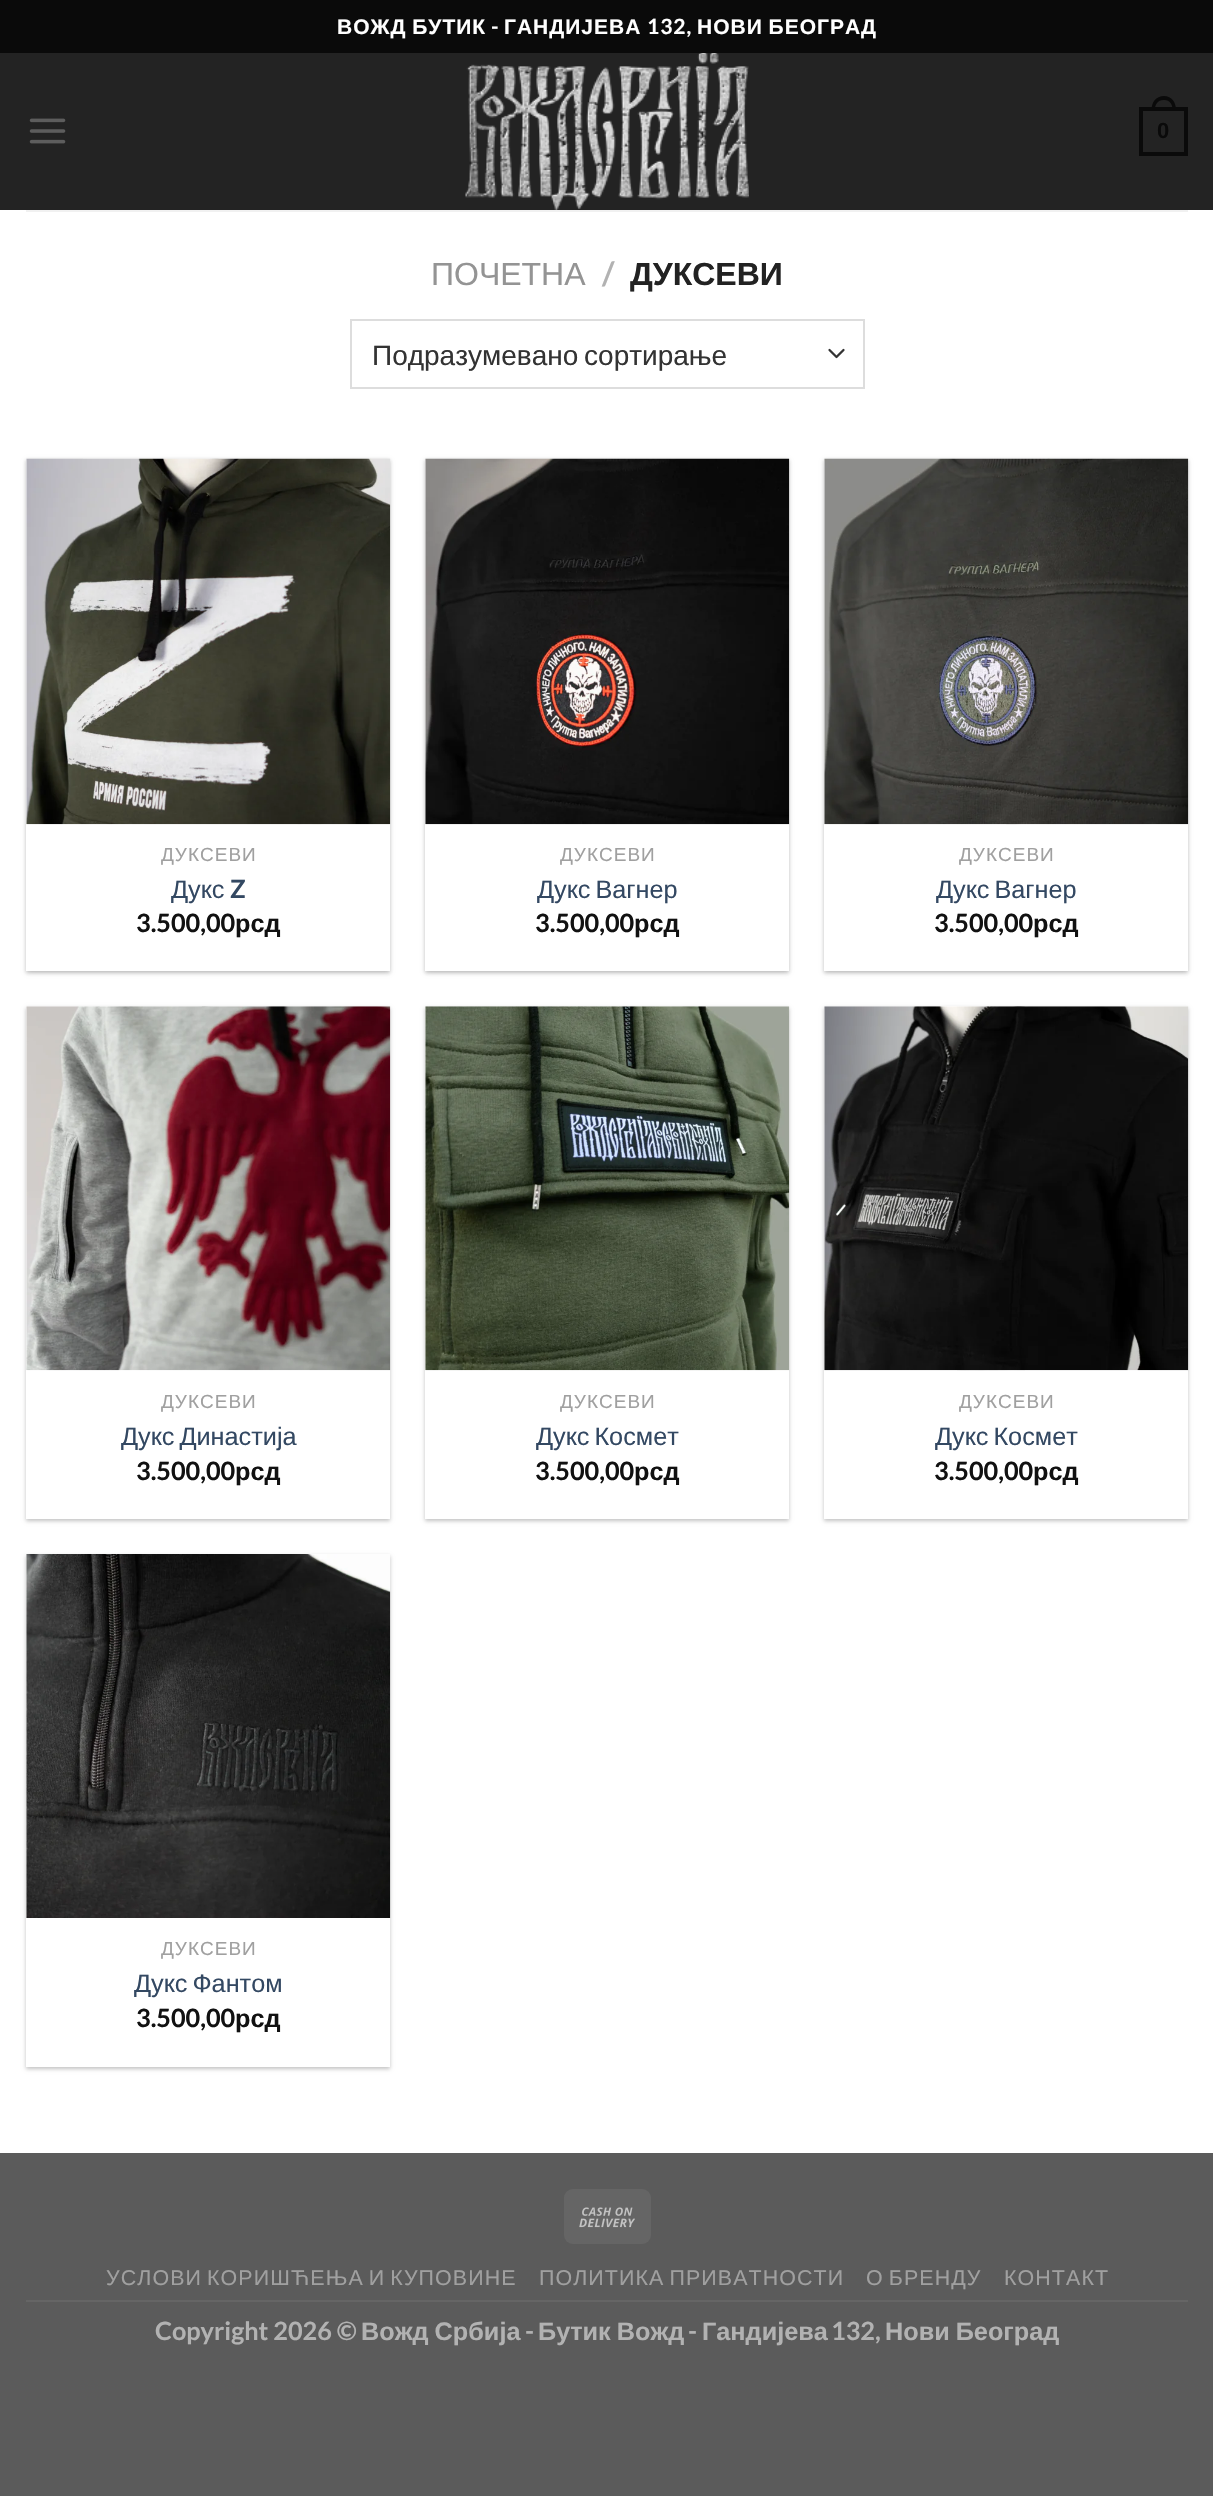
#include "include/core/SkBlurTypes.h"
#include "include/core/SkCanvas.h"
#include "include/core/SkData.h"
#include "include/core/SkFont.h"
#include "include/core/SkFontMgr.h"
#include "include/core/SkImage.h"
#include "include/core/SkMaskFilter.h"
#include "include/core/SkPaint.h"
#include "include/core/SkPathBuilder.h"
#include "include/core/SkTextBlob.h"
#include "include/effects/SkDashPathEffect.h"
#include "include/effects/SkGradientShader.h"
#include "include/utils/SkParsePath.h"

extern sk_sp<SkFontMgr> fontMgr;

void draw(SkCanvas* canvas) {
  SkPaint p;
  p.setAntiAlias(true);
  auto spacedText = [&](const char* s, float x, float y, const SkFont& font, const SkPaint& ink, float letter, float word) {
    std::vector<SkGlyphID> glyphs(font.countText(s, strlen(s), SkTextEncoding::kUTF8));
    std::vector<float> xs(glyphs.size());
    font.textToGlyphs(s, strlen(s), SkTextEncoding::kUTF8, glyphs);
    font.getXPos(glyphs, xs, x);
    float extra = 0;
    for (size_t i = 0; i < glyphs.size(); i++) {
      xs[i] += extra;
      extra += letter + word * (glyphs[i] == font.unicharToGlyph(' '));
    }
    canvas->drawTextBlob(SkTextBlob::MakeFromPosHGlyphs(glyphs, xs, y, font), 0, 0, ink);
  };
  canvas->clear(SkColorSetRGB(91, 91, 91));
  p.setColor(SK_ColorWHITE);
  canvas->drawRect(SkRect::MakeLTRB(0, 210, 1213, 2153), p);
  p.setColor(SkColorSetRGB(10, 10, 10));
  canvas->drawRect(SkRect::MakeLTRB(0, 0, 1213, 53), p);
  p.setColor(SkColorSetRGB(35, 35, 35));
  canvas->drawRect(SkRect::MakeLTRB(0, 53, 1213, 210), p);
  canvas->drawImageRect(SkImages::DeferredFromEncodedData(SkData::MakeFromFileName("images/1.png")), SkRect::MakeLTRB(29, 118, 66, 144), SkSamplingOptions());
  canvas->drawImageRect(SkImages::DeferredFromEncodedData(SkData::MakeFromFileName("images/2.png")), SkRect::MakeLTRB(465, 53, 749, 210), SkSamplingOptions());
  p.setStyle(SkPaint::kStroke_Style);
  p.setStrokeWidth(4);
  p.setColor(SkColorSetRGB(10, 10, 10));
  canvas->drawRect(SkRect::MakeLTRB(1141, 109, 1186, 154), p);
  p.setStyle(SkPaint::kFill_Style);
  canvas->drawPath(SkPathBuilder(SkPathFillType::kEvenOdd).moveTo(1164, 96).cubicTo(1172, 96, 1176, 102.5f, 1176, 110).lineTo(1151.5f, 110).cubicTo(1151.5f, 102.5f, 1155.5f, 96, 1164, 96).close().moveTo(1164, 100).cubicTo(1170, 100, 1172.5f, 104.5f, 1172.5f, 110).lineTo(1155, 110).cubicTo(1155, 104.5f, 1157.5f, 100, 1164, 100).close().detach(), p);
  p.setColor(SkColorSetRGB(241, 241, 241));
  canvas->drawRect(SkRect::MakeLTRB(26, 210, 1188, 212), p);
  p.setStyle(SkPaint::kStroke_Style);
  p.setStrokeWidth(2.3f);
  p.setStrokeCap(SkPaint::kRound_Cap);
  p.setStrokeJoin(SkPaint::kRound_Join);
  p.setColor(SkColorSetRGB(51, 51, 51));
  canvas->drawPath(SkPathBuilder().moveTo(829.5f, 350).lineTo(836.5f, 357).lineTo(843.5f, 350).detach(), p);
  p.setStrokeWidth(2);
  p.setStrokeCap(SkPaint::kButt_Cap);
  p.setStrokeJoin(SkPaint::kMiter_Join);
  p.setColor(SkColorSetRGB(221, 221, 221));
  canvas->drawRect(SkRect::MakeLTRB(351, 320, 864, 388), p);
  p.setStyle(SkPaint::kFill_Style);
  p.setColor(SkColorSetARGB(61, 0, 0, 0));
  p.setMaskFilter(SkMaskFilter::MakeBlur(kNormal_SkBlurStyle, 2));
  canvas->drawRect(SkRect::MakeLTRB(26, 460, 390, 973), p);
  p.setMaskFilter(nullptr);
  p.setColor(SkColorSetARGB(31, 0, 0, 0));
  p.setMaskFilter(SkMaskFilter::MakeBlur(kNormal_SkBlurStyle, 2.5f));
  canvas->drawRect(SkRect::MakeLTRB(30, 464, 387, 970), p);
  p.setMaskFilter(nullptr);
  p.setColor(SK_ColorWHITE);
  canvas->drawRect(SkRect::MakeLTRB(26, 459, 390, 971), p);
  canvas->drawImageRect(SkImages::DeferredFromEncodedData(SkData::MakeFromFileName("images/4.png")), SkRect::MakeLTRB(83, 458, 333, 825), SkSamplingOptions());
  canvas->drawImageRect(SkImages::DeferredFromEncodedData(SkData::MakeFromFileName("images/3.png")), SkRect::MakeLTRB(26, 458, 391, 825), SkSamplingOptions());
  p.setColor(SkColorSetARGB(61, 0, 0, 0));
  p.setMaskFilter(SkMaskFilter::MakeBlur(kNormal_SkBlurStyle, 2));
  canvas->drawRect(SkRect::MakeLTRB(425, 460, 789, 973), p);
  p.setMaskFilter(nullptr);
  p.setColor(SkColorSetARGB(31, 0, 0, 0));
  p.setMaskFilter(SkMaskFilter::MakeBlur(kNormal_SkBlurStyle, 2.5f));
  canvas->drawRect(SkRect::MakeLTRB(429, 464, 786, 970), p);
  p.setMaskFilter(nullptr);
  p.setColor(SK_ColorWHITE);
  canvas->drawRect(SkRect::MakeLTRB(425, 459, 789, 971), p);
  canvas->drawImageRect(SkImages::DeferredFromEncodedData(SkData::MakeFromFileName("images/5.png")), SkRect::MakeLTRB(425, 458, 790, 825), SkSamplingOptions());
  p.setColor(SkColorSetARGB(61, 0, 0, 0));
  p.setMaskFilter(SkMaskFilter::MakeBlur(kNormal_SkBlurStyle, 2));
  canvas->drawRect(SkRect::MakeLTRB(824, 460, 1188, 973), p);
  p.setMaskFilter(nullptr);
  p.setColor(SkColorSetARGB(31, 0, 0, 0));
  p.setMaskFilter(SkMaskFilter::MakeBlur(kNormal_SkBlurStyle, 2.5f));
  canvas->drawRect(SkRect::MakeLTRB(828, 464, 1185, 970), p);
  p.setMaskFilter(nullptr);
  p.setColor(SK_ColorWHITE);
  canvas->drawRect(SkRect::MakeLTRB(824, 459, 1188, 971), p);
  canvas->drawImageRect(SkImages::DeferredFromEncodedData(SkData::MakeFromFileName("images/7.png")), SkRect::MakeLTRB(1006, 458, 1050, 825), SkSamplingOptions());
  canvas->drawImageRect(SkImages::DeferredFromEncodedData(SkData::MakeFromFileName("images/6.png")), SkRect::MakeLTRB(824, 458, 1189, 825), SkSamplingOptions());
  p.setColor(SkColorSetARGB(61, 0, 0, 0));
  p.setMaskFilter(SkMaskFilter::MakeBlur(kNormal_SkBlurStyle, 2));
  canvas->drawRect(SkRect::MakeLTRB(26, 1008, 390, 1521), p);
  p.setMaskFilter(nullptr);
  p.setColor(SK_ColorWHITE);
  canvas->drawRect(SkRect::MakeLTRB(26, 1006, 390, 1519), p);
  canvas->drawImageRect(SkImages::DeferredFromEncodedData(SkData::MakeFromFileName("images/9.png")), SkRect::MakeLTRB(198, 1006, 213, 1007), SkSamplingOptions());
  canvas->drawImageRect(SkImages::DeferredFromEncodedData(SkData::MakeFromFileName("images/8.png")), SkRect::MakeLTRB(26, 1006, 391, 1371), SkSamplingOptions());
  p.setColor(SkColorSetARGB(61, 0, 0, 0));
  p.setMaskFilter(SkMaskFilter::MakeBlur(kNormal_SkBlurStyle, 2));
  canvas->drawRect(SkRect::MakeLTRB(425, 1008, 789, 1521), p);
  p.setMaskFilter(nullptr);
  p.setColor(SK_ColorWHITE);
  canvas->drawRect(SkRect::MakeLTRB(425, 1006, 789, 1519), p);
  canvas->drawImageRect(SkImages::DeferredFromEncodedData(SkData::MakeFromFileName("images/10.png")), SkRect::MakeLTRB(425, 1006, 790, 1371), SkSamplingOptions());
  p.setColor(SkColorSetARGB(61, 0, 0, 0));
  p.setMaskFilter(SkMaskFilter::MakeBlur(kNormal_SkBlurStyle, 2));
  canvas->drawRect(SkRect::MakeLTRB(824, 1008, 1188, 1521), p);
  p.setMaskFilter(nullptr);
  p.setColor(SK_ColorWHITE);
  canvas->drawRect(SkRect::MakeLTRB(824, 1006, 1188, 1519), p);
  canvas->drawImageRect(SkImages::DeferredFromEncodedData(SkData::MakeFromFileName("images/12.png")), SkRect::MakeLTRB(957, 1006, 1025, 1371), SkSamplingOptions());
  canvas->drawImageRect(SkImages::DeferredFromEncodedData(SkData::MakeFromFileName("images/11.png")), SkRect::MakeLTRB(824, 1006, 1189, 1371), SkSamplingOptions());
  p.setColor(SkColorSetARGB(61, 0, 0, 0));
  p.setMaskFilter(SkMaskFilter::MakeBlur(kNormal_SkBlurStyle, 2));
  canvas->drawRect(SkRect::MakeLTRB(26, 1556, 390, 2069), p);
  p.setMaskFilter(nullptr);
  p.setColor(SK_ColorWHITE);
  canvas->drawRect(SkRect::MakeLTRB(26, 1554, 390, 2067), p);
  canvas->drawImageRect(SkImages::DeferredFromEncodedData(SkData::MakeFromFileName("images/13.png")), SkRect::MakeLTRB(26, 1554, 391, 1918), SkSamplingOptions());
  p.setColor(SkColorSetRGB(101, 101, 101));
  canvas->drawRoundRect(SkRect::MakeLTRB(564, 2189, 651, 2244), 9, 9, p);
  canvas->drawImageRect(SkImages::DeferredFromEncodedData(SkData::MakeFromFileName("images/14.png")), SkRect::MakeLTRB(579, 2207, 635, 2228), SkSamplingOptions());
  canvas->drawRect(SkRect::MakeLTRB(26, 2300, 1188, 2302), p);
  SkFont font1(fontMgr->matchFamilyStyle("Liberation Sans", SkFontStyle::Bold()), 21);
  font1.setSubpixel(true);
  p.setColor(SK_ColorWHITE);
  spacedText("ВОЖД БУТИК", 337, 34, font1, p, 1, -1);
  SkFont font2(fontMgr->matchFamilyStyle("Lato", SkFontStyle::Bold()), 21);
  font2.setSubpixel(true);
  spacedText("-", 491, 34, font2, p, 1, 0);
  spacedText("ГАНДИЈЕВА", 504, 34, font1, p, 1, 0);
  spacedText("132,", 647, 34, font2, p, 1, 0);
  spacedText("НОВИ БЕОГРАД", 697, 34, font1, p, 1, -1);
  SkFont font3(fontMgr->matchFamilyStyle("Liberation Sans", SkFontStyle::Bold()), 22);
  font3.setSubpixel(true);
  p.setColor(SkColorSetRGB(10, 10, 10));
  canvas->drawString("0", 1157, 138, font3, p);
  SkFont font4(fontMgr->matchFamilyStyle("Liberation Sans", SkFontStyle::Normal()), 32);
  font4.setSubpixel(true);
  p.setColor(SkColorSetRGB(148, 148, 148));
  canvas->drawString("ПОЧЕТНА", 431, 285, font4, p);
  SkFont font5(fontMgr->matchFamilyStyle("Lato", SkFontStyle::Bold()), 32);
  font5.setSubpixel(true);
  p.setColor(SkColorSetRGB(178, 178, 178));
  canvas->drawString("/", 602, 285, font5, p);
  SkFont font6(fontMgr->matchFamilyStyle("Liberation Sans", SkFontStyle::Bold()), 32);
  font6.setSubpixel(true);
  p.setColor(SkColorSetRGB(34, 34, 34));
  canvas->drawString("ДУКСЕВИ", 630, 285, font6, p);
  SkFont font7(fontMgr->matchFamilyStyle("Liberation Sans", SkFontStyle::Normal()), 28);
  font7.setSubpixel(true);
  p.setColor(SkColorSetRGB(51, 51, 51));
  spacedText("Подразумевано сортирање", 372, 365, font7, p, 0, -2);
  SkFont font8(fontMgr->matchFamilyStyle("Liberation Sans", SkFontStyle::Normal()), 19);
  font8.setSubpixel(true);
  p.setColor(SkColorSetRGB(160, 160, 160));
  spacedText("ДУКСЕВИ", 161, 861, font8, p, 1, 0);
  SkFont font9(fontMgr->matchFamilyStyle("Liberation Sans", SkFontStyle::Normal()), 25.25f);
  font9.setSubpixel(true);
  p.setColor(SkColorSetRGB(51, 72, 98));
  canvas->drawString("Дукс", 171, 898, font9, p);
  SkFont font10(fontMgr->matchFamilyStyle("Lato", SkFontStyle::Bold()), 25.25f);
  font10.setSubpixel(true);
  canvas->drawString("Z", 230, 898, font10, p);
  p.setColor(SkColorSetRGB(17, 17, 17));
  canvas->drawString("3.500,00", 136, 932, font10, p);
  SkFont font11(fontMgr->matchFamilyStyle("Liberation Sans", SkFontStyle::Bold()), 25.25f);
  font11.setSubpixel(true);
  canvas->drawString("рсд", 235, 932, font11, p);
  p.setColor(SkColorSetRGB(160, 160, 160));
  spacedText("ДУКСЕВИ", 560, 861, font8, p, 1, 0);
  p.setColor(SkColorSetRGB(51, 72, 98));
  spacedText("Дукс Вагнер", 537, 898, font9, p, 0, -2);
  p.setColor(SkColorSetRGB(17, 17, 17));
  canvas->drawString("3.500,00", 535, 932, font10, p);
  canvas->drawString("рсд", 634, 932, font11, p);
  p.setColor(SkColorSetRGB(160, 160, 160));
  spacedText("ДУКСЕВИ", 959, 861, font8, p, 1, 0);
  p.setColor(SkColorSetRGB(51, 72, 98));
  spacedText("Дукс Вагнер", 936, 898, font9, p, 0, -2);
  p.setColor(SkColorSetRGB(17, 17, 17));
  canvas->drawString("3.500,00", 934, 932, font10, p);
  canvas->drawString("рсд", 1033, 932, font11, p);
  p.setColor(SkColorSetRGB(160, 160, 160));
  spacedText("ДУКСЕВИ", 161, 1408, font8, p, 1, 0);
  p.setColor(SkColorSetRGB(51, 72, 98));
  spacedText("Дукс Династија", 121, 1445, font9, p, 0, -2);
  p.setColor(SkColorSetRGB(17, 17, 17));
  canvas->drawString("3.500,00", 136, 1480, font10, p);
  canvas->drawString("рсд", 235, 1480, font11, p);
  p.setColor(SkColorSetRGB(160, 160, 160));
  spacedText("ДУКСЕВИ", 560, 1408, font8, p, 1, 0);
  p.setColor(SkColorSetRGB(51, 72, 98));
  spacedText("Дукс Космет", 536, 1445, font9, p, 0, -2);
  p.setColor(SkColorSetRGB(17, 17, 17));
  canvas->drawString("3.500,00", 535, 1480, font10, p);
  canvas->drawString("рсд", 634, 1480, font11, p);
  p.setColor(SkColorSetRGB(160, 160, 160));
  spacedText("ДУКСЕВИ", 959, 1408, font8, p, 1, 0);
  p.setColor(SkColorSetRGB(51, 72, 98));
  spacedText("Дукс Космет", 935, 1445, font9, p, 0, -2);
  p.setColor(SkColorSetRGB(17, 17, 17));
  canvas->drawString("3.500,00", 934, 1480, font10, p);
  canvas->drawString("рсд", 1033, 1480, font11, p);
  p.setColor(SkColorSetRGB(160, 160, 160));
  spacedText("ДУКСЕВИ", 161, 1955, font8, p, 1, 0);
  p.setColor(SkColorSetRGB(51, 72, 98));
  spacedText("Дукс Фантом", 134, 1992, font9, p, 0, -2);
  p.setColor(SkColorSetRGB(17, 17, 17));
  canvas->drawString("3.500,00", 136, 2027, font10, p);
  canvas->drawString("рсд", 235, 2027, font11, p);
  SkFont font12(fontMgr->matchFamilyStyle("Liberation Sans", SkFontStyle::Normal()), 21.4f);
  font12.setSubpixel(true);
  p.setColor(SkColorSetRGB(160, 160, 160));
  spacedText("УСЛОВИ КОРИШЋЕЊА И КУПОВИНЕ", 106, 2285, font12, p, 1.1f, -2);
  spacedText("ПОЛИТИКА ПРИВАТНОСТИ", 539, 2285, font12, p, 1.1f, -2);
  spacedText("О БРЕНДУ", 866, 2285, font12, p, 1.1f, -2);
  spacedText("КОНТАКТ", 1004, 2285, font12, p, 1.1f, 0);
  p.setColor(SkColorSetRGB(178, 178, 178));
  canvas->drawString("Copyright 2026 ©", 155, 2340, font10, p);
  spacedText("Вожд Србија", 361, 2340, font11, p, 0, -1);
  canvas->drawString("-", 525, 2340, font10, p);
  spacedText("Бутик Вожд", 538, 2340, font11, p, 0, -1);
  canvas->drawString("-", 688, 2340, font10, p);
  canvas->drawString("Гандијева", 702, 2340, font11, p);
  canvas->drawString("132,", 831, 2340, font10, p);
  spacedText("Нови Београд", 885, 2340, font11, p, 0, -1);
}
